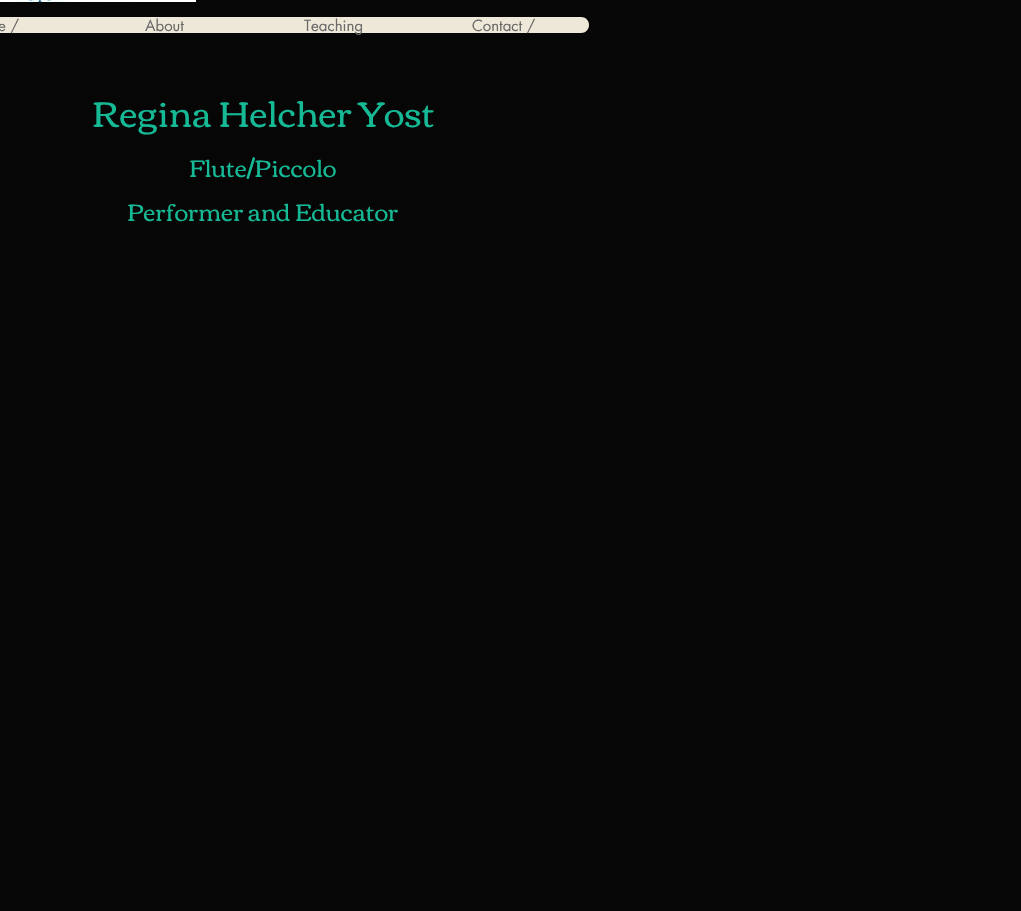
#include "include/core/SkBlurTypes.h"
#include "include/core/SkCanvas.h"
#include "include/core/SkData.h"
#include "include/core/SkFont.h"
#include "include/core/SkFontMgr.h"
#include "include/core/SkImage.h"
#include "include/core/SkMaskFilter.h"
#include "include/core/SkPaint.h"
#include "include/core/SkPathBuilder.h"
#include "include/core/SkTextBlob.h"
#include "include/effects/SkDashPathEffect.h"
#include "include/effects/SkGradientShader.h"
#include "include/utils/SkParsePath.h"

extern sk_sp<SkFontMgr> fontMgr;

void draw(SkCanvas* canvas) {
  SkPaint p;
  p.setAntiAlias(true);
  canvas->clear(SkColorSetRGB(7, 6, 6));
  canvas->drawImageRect(SkImages::DeferredFromEncodedData(SkData::MakeFromFileName("images/1.png")), SkRect::MakeLTRB(0, 0, 196, 2), SkSamplingOptions());
  p.setColor(SkColorSetRGB(238, 232, 216));
  canvas->drawPath(SkPathBuilder().moveTo(0, 17).lineTo(581, 17).cubicTo(585.5f, 17, 589, 20.5f, 589, 25).cubicTo(589, 29.5f, 585.5f, 33, 581, 33).lineTo(0, 33).close().detach(), p);
  SkFont font1(fontMgr->matchFamilyStyle("futura", SkFontStyle::Normal()), 15);
  font1.setSubpixel(true);
  p.setColor(SkColorSetRGB(105, 105, 105));
  canvas->drawString("e /", -2, 31, font1, p);
  canvas->drawString("About", 145, 31, font1, p);
  canvas->drawString("Teaching", 304, 31, font1, p);
  canvas->drawString("Contact /", 472, 31, font1, p);
  SkFont font2(fontMgr->matchFamilyStyle("Corben", SkFontStyle::Normal()), 36);
  font2.setSubpixel(true);
  p.setColor(SkColorSetRGB(22, 185, 149));
  canvas->drawString("Regina Helcher Yost", 92, 127, font2, p);
  SkFont font3(fontMgr->matchFamilyStyle("Corben", SkFontStyle::Normal()), 24);
  font3.setSubpixel(true);
  canvas->drawString("Flute/Piccolo", 189, 177, font3, p);
  canvas->drawString("Performer and Educator", 127, 221, font3, p);
}
